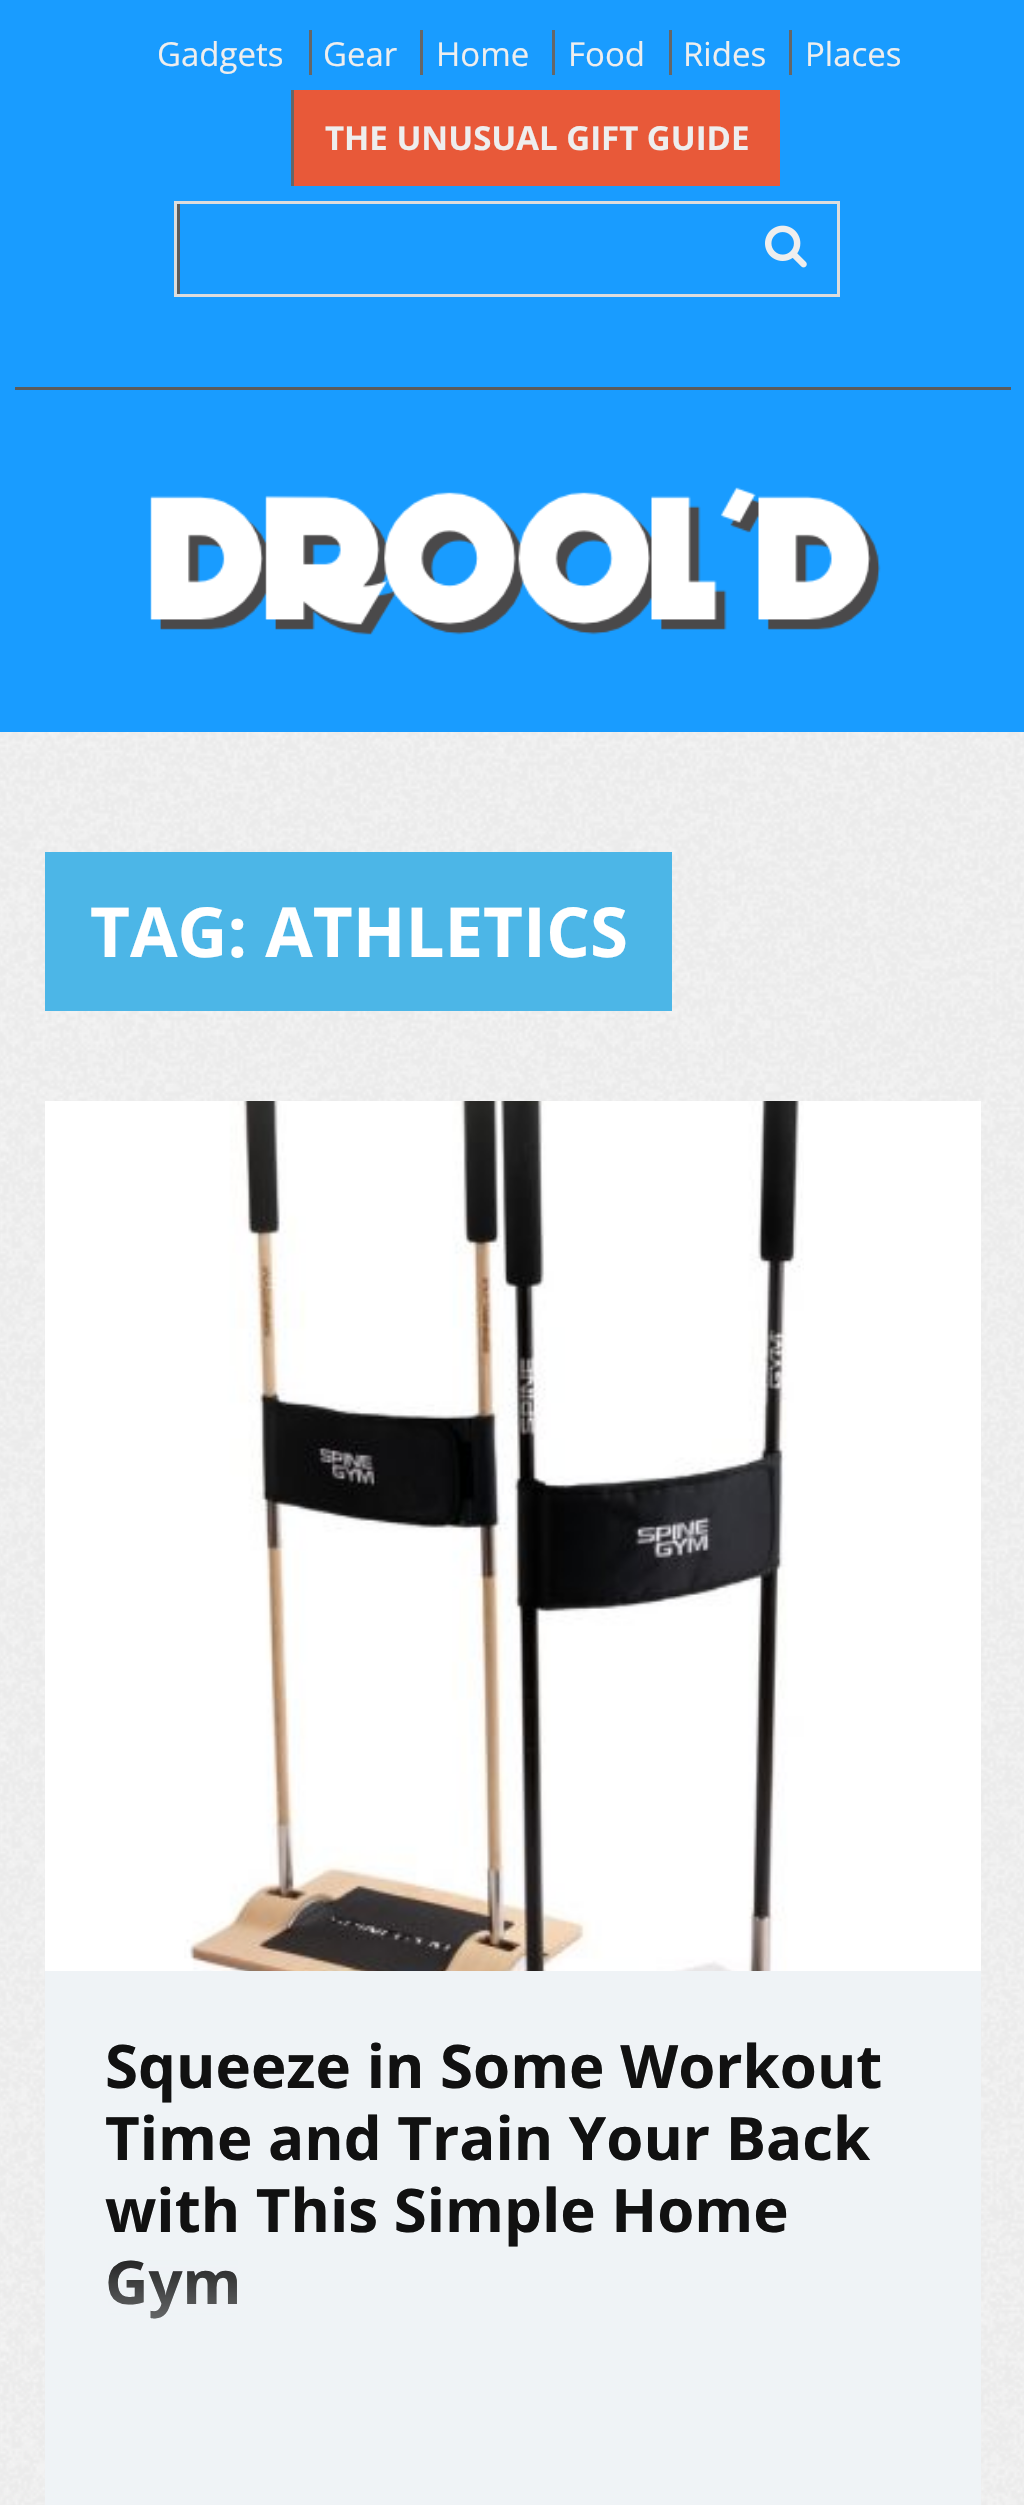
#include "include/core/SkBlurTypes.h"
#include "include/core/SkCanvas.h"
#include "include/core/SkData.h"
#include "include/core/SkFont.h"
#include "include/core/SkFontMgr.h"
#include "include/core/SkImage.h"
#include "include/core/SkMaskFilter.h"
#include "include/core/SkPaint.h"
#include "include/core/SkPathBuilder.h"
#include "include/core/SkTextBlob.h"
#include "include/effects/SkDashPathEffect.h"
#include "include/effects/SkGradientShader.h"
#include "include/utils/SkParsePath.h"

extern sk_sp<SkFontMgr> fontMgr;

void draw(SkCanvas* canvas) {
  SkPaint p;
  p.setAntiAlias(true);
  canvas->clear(SK_ColorWHITE);
  canvas->drawImageRect(SkImages::DeferredFromEncodedData(SkData::MakeFromFileName("images/1.png")), SkRect::MakeLTRB(0, 732, 1024, 2505), SkSamplingOptions());
  p.setColor(SkColorSetRGB(25, 156, 255));
  canvas->drawRect(SkRect::MakeLTRB(0, 0, 1024, 732), p);
  p.setColor(SkColorSetRGB(91, 91, 91));
  canvas->drawRect(SkRect::MakeLTRB(15, 387, 1011, 390), p);
  p.setColor(SkColorSetRGB(102, 102, 102));
  canvas->drawRect(SkRect::MakeLTRB(309, 30, 312, 75), p);
  canvas->drawRect(SkRect::MakeLTRB(420, 30, 423, 75), p);
  canvas->drawRect(SkRect::MakeLTRB(552, 30, 555, 75), p);
  canvas->drawRect(SkRect::MakeLTRB(669, 30, 672, 75), p);
  canvas->drawRect(SkRect::MakeLTRB(789, 30, 792, 75), p);
  p.setColor(SkColorSetRGB(232, 89, 57));
  canvas->drawRect(SkRect::MakeLTRB(294, 90, 780, 186), p);
  p.setColor(SkColorSetRGB(102, 102, 102));
  canvas->drawRect(SkRect::MakeLTRB(291, 90, 294, 186), p);
  p.setStyle(SkPaint::kStroke_Style);
  p.setStrokeWidth(3);
  p.setColor(SkColorSetRGB(221, 221, 221));
  canvas->drawRect(SkRect::MakeLTRB(175.5f, 202.5f, 838.5f, 295.5f), p);
  p.setStyle(SkPaint::kFill_Style);
  p.setColor(SkColorSetRGB(91, 91, 91));
  canvas->drawRect(SkRect::MakeLTRB(177, 204, 180, 294), p);
  canvas->drawImageRect(SkImages::DeferredFromEncodedData(SkData::MakeFromFileName("images/2.png")), SkRect::MakeLTRB(765, 225, 807, 268), SkSamplingOptions());
  canvas->drawImageRect(SkImages::DeferredFromEncodedData(SkData::MakeFromFileName("images/3.png")), SkRect::MakeLTRB(150, 487, 881, 635), SkSamplingOptions());
  p.setColor(SkColorSetRGB(76, 182, 231));
  canvas->drawRect(SkRect::MakeLTRB(45, 852, 672, 1011), p);
  p.setColor(SK_ColorWHITE);
  canvas->drawRect(SkRect::MakeLTRB(45, 1101, 981, 1971), p);
  canvas->drawImageRect(SkImages::DeferredFromEncodedData(SkData::MakeFromFileName("images/4.png")), SkRect::MakeLTRB(184, 1101, 804, 1971), SkSamplingOptions());
  p.setColor(SkColorSetRGB(239, 243, 246));
  canvas->drawRect(SkRect::MakeLTRB(45, 1971, 981, 2505), p);
  SkFont font1(fontMgr->matchFamilyStyle("Open Sans", SkFontStyle::Normal()), 33);
  font1.setSubpixel(true);
  p.setColor(SkColorSetRGB(238, 238, 238));
  canvas->drawString("Gadgets", 157, 66, font1, p);
  canvas->drawString("Gear", 323, 66, font1, p);
  canvas->drawString("Home", 436, 66, font1, p);
  canvas->drawString("Food", 568, 66, font1, p);
  canvas->drawString("Rides", 683, 66, font1, p);
  canvas->drawString("Places", 805, 66, font1, p);
  SkFont font2(fontMgr->matchFamilyStyle("Open Sans", SkFontStyle::Bold()), 33);
  font2.setSubpixel(true);
  canvas->drawString("THE UNUSUAL GIFT GUIDE", 325, 150, font2, p);
  SkFont font3(fontMgr->matchFamilyStyle("Open Sans", SkFontStyle::Bold()), 69);
  font3.setSubpixel(true);
  p.setColor(SK_ColorWHITE);
  canvas->drawString("TAG: ATHLETICS", 90, 957, font3, p);
  SkFont font4(fontMgr->matchFamilyStyle("Open Sans", SkFontStyle::Bold()), 60);
  font4.setSubpixel(true);
  p.setColor(SkColorSetRGB(17, 17, 17));
  canvas->drawString("Squeeze in Some Workout", 105, 2088, font4, p);
  canvas->drawString("Time and Train Your Back", 105, 2160, font4, p);
  canvas->drawString("with This Simple Home", 105, 2232, font4, p);
  canvas->drawString("Gym", 105, 2304, font4, p);
  {
    const SkColor colors[] = {SkColorSetARGB(0, 239, 243, 246), SkColorSetRGB(239, 243, 246)};
    const float stops[] = {0, 1};
    const SkPoint ends[] = {{513, 2241}, {513, 2451}};
    p.setShader(SkGradientShader::MakeLinear(ends, colors, stops, 2, SkTileMode::kClamp));
    p.setAlpha(255);
  }
  canvas->drawRect(SkRect::MakeLTRB(108, 2260, 238, 2319), p);
}
